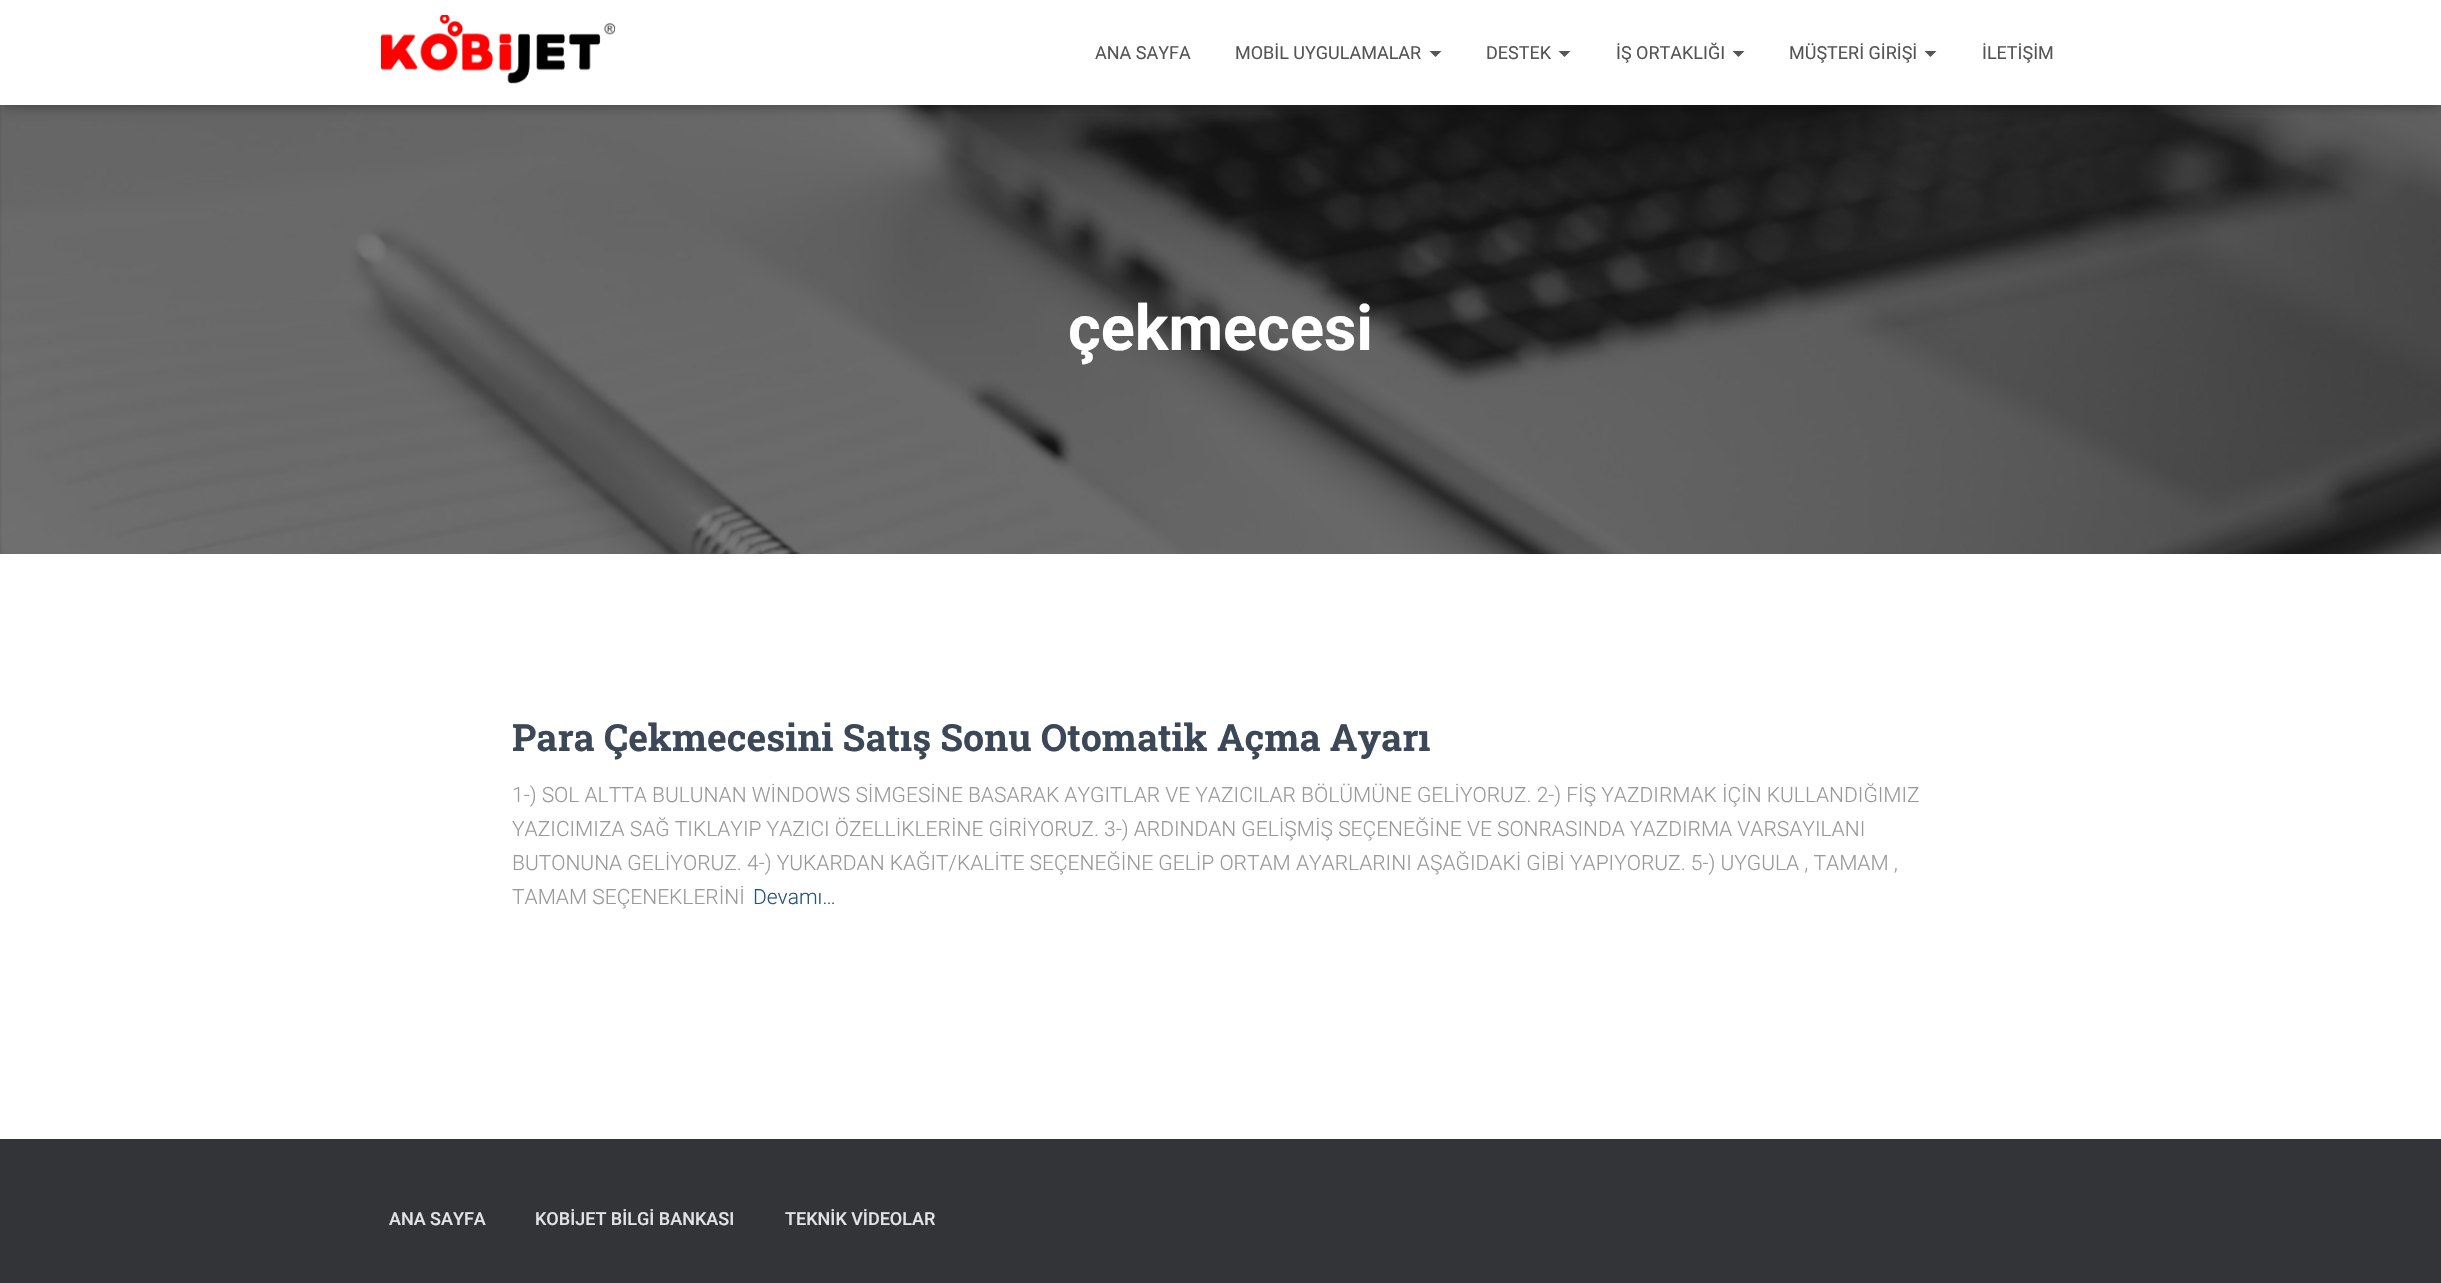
#include "include/core/SkBlurTypes.h"
#include "include/core/SkCanvas.h"
#include "include/core/SkData.h"
#include "include/core/SkFont.h"
#include "include/core/SkFontMgr.h"
#include "include/core/SkImage.h"
#include "include/core/SkMaskFilter.h"
#include "include/core/SkPaint.h"
#include "include/core/SkPathBuilder.h"
#include "include/core/SkTextBlob.h"
#include "include/effects/SkDashPathEffect.h"
#include "include/effects/SkGradientShader.h"
#include "include/utils/SkParsePath.h"

extern sk_sp<SkFontMgr> fontMgr;

void draw(SkCanvas* canvas) {
  SkPaint p;
  p.setAntiAlias(true);
  canvas->clear(SK_ColorWHITE);
  canvas->drawImageRect(SkImages::DeferredFromEncodedData(SkData::MakeFromFileName("images/1.png")), SkRect::MakeLTRB(0, 105, 2441, 554), SkSamplingOptions());
  p.setColor(SkColorSetARGB(128, 0, 0, 0));
  canvas->drawRect(SkRect::MakeLTRB(0, 105, 2441, 554), p);
  p.setColor(SkColorSetARGB(26, 0, 0, 0));
  p.setMaskFilter(SkMaskFilter::MakeBlur(kNormal_SkBlurStyle, 4));
  canvas->drawRect(SkRect::MakeLTRB(3, 9, 2439, 108), p);
  p.setMaskFilter(nullptr);
  p.setColor(SkColorSetARGB(31, 0, 0, 0));
  p.setMaskFilter(SkMaskFilter::MakeBlur(kNormal_SkBlurStyle, 7.5f));
  canvas->drawRect(SkRect::MakeLTRB(0, 2, 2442, 107), p);
  p.setMaskFilter(nullptr);
  p.setColor(SkColorSetARGB(107, 0, 0, 0));
  p.setMaskFilter(SkMaskFilter::MakeBlur(kNormal_SkBlurStyle, 7.5f));
  canvas->drawRect(SkRect::MakeLTRB(9, 11, 2433, 98), p);
  p.setMaskFilter(nullptr);
  p.setColor(SK_ColorWHITE);
  canvas->drawRect(SkRect::MakeLTRB(0, 0, 2441, 105), p);
  canvas->drawImageRect(SkImages::DeferredFromEncodedData(SkData::MakeFromFileName("images/2.png")), SkRect::MakeLTRB(381, 15, 615, 84), SkSamplingOptions());
  p.setColor(SkColorSetRGB(85, 85, 85));
  canvas->drawPath(SkPathBuilder().moveTo(1429.5f, 51).lineTo(1441.5f, 51).lineTo(1435.5f, 57).close().detach(), p);
  canvas->drawPath(SkPathBuilder().moveTo(1558.5f, 51).lineTo(1570.5f, 51).lineTo(1564.5f, 57).close().detach(), p);
  canvas->drawPath(SkPathBuilder().moveTo(1732.5f, 51).lineTo(1744.5f, 51).lineTo(1738.5f, 57).close().detach(), p);
  canvas->drawPath(SkPathBuilder().moveTo(1924.5f, 51).lineTo(1936.5f, 51).lineTo(1930.5f, 57).close().detach(), p);
  p.setColor(SkColorSetRGB(50, 52, 55));
  canvas->drawRect(SkRect::MakeLTRB(0, 1139, 2441, 1283), p);
  SkFont font1(fontMgr->matchFamilyStyle("Roboto", SkFontStyle::Normal()), 18);
  font1.setSubpixel(true);
  p.setColor(SkColorSetRGB(85, 85, 85));
  canvas->drawString("ANA SAYFA", 1095, 59, font1, p);
  canvas->drawString("MOBİL UYGULAMALAR", 1235, 59, font1, p);
  canvas->drawString("DESTEK", 1486, 59, font1, p);
  canvas->drawString("İŞ ORTAKLIĞI", 1616, 59, font1, p);
  canvas->drawString("MÜŞTERİ GİRİŞİ", 1789, 59, font1, p);
  canvas->drawString("İLETİŞİM", 1982, 59, font1, p);
  SkFont font2(fontMgr->matchFamilyStyle("Roboto", SkFontStyle::Bold()), 63);
  font2.setSubpixel(true);
  p.setColor(SK_ColorWHITE);
  canvas->drawString("çekmecesi", 1068, 350, font2, p);
  SkFont font3(fontMgr->matchFamilyStyle("Roboto Slab", SkFontStyle::Bold()), 37.5f);
  font3.setSubpixel(true);
  p.setColor(SkColorSetRGB(60, 72, 88));
  canvas->drawString("Para Çekmecesini Satış Sonu Otomatik Açma Ayarı", 512, 751, font3, p);
  SkFont font4(fontMgr->matchFamilyStyle("Roboto", SkFontStyle(300, SkFontStyle::kNormal_Width, SkFontStyle::kUpright_Slant)), 21);
  font4.setSubpixel(true);
  p.setColor(SkColorSetRGB(153, 153, 153));
  canvas->drawString("1-) SOL ALTTA BULUNAN WİNDOWS SİMGESİNE BASARAK AYGITLAR VE YAZICILAR BÖLÜMÜNE GELİYORUZ. 2-) FİŞ YAZDIRMAK İÇİN KULLANDIĞIMIZ", 512, 802, font4, p);
  canvas->drawString("YAZICIMIZA SAĞ TIKLAYIP YAZICI ÖZELLİKLERİNE GİRİYORUZ. 3-) ARDINDAN GELİŞMİŞ SEÇENEĞİNE VE SONRASINDA YAZDIRMA VARSAYILANI", 512, 836, font4, p);
  canvas->drawString("BUTONUNA GELİYORUZ. 4-) YUKARDAN KAĞIT/KALİTE SEÇENEĞİNE GELİP ORTAM AYARLARINI AŞAĞIDAKİ GİBİ YAPIYORUZ. 5-) UYGULA , TAMAM ,", 512, 870, font4, p);
  canvas->drawString("TAMAM SEÇENEKLERİNİ", 512, 904, font4, p);
  p.setColor(SkColorSetRGB(35, 82, 124));
  canvas->drawString("Devamı…", 753, 904, font4, p);
  SkFont font5(fontMgr->matchFamilyStyle("Roboto", SkFontStyle(500, SkFontStyle::kNormal_Width, SkFontStyle::kUpright_Slant)), 18);
  font5.setSubpixel(true);
  p.setColor(SkColorSetRGB(226, 227, 227));
  canvas->drawString("ANA SAYFA", 389, 1225, font5, p);
  canvas->drawString("KOBİJET BİLGİ BANKASI", 535, 1225, font5, p);
  canvas->drawString("TEKNİK VİDEOLAR", 785, 1225, font5, p);
}
